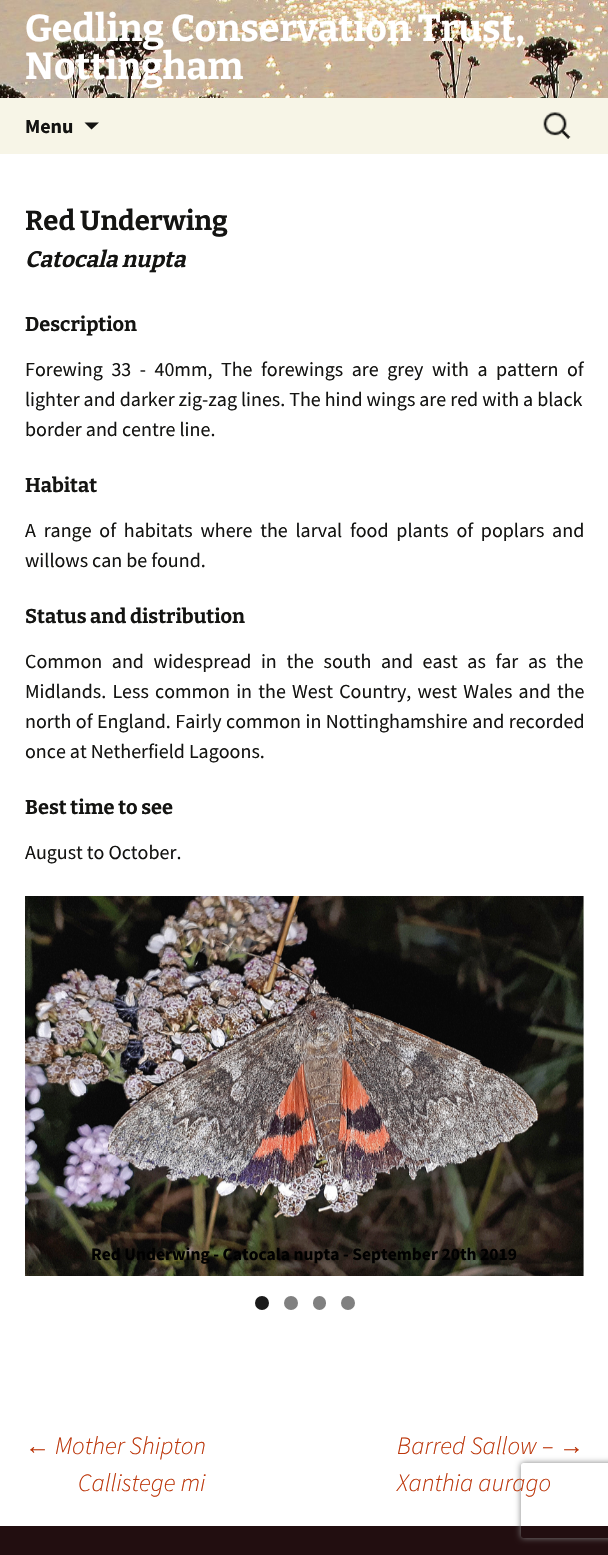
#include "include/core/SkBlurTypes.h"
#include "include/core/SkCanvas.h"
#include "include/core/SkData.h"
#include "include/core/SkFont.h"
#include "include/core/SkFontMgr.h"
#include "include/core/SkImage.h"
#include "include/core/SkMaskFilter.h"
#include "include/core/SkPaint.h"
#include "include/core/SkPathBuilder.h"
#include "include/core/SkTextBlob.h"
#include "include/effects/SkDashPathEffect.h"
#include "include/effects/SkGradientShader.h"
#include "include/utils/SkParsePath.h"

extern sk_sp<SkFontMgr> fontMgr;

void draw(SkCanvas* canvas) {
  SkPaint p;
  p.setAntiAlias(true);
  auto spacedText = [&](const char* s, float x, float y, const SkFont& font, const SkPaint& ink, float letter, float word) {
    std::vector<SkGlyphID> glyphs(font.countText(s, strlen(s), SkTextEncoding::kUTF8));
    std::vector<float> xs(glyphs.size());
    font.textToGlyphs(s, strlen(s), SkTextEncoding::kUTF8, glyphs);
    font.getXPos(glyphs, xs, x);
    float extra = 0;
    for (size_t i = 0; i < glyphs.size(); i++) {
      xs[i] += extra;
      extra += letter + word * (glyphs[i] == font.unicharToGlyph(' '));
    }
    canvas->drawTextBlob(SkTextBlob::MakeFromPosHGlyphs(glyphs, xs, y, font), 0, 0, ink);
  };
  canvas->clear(SK_ColorWHITE);
  canvas->drawImageRect(SkImages::DeferredFromEncodedData(SkData::MakeFromFileName("images/1.png")), SkRect::MakeLTRB(0, 0, 608, 98), SkSamplingOptions());
  p.setColor(SkColorSetRGB(247, 245, 231));
  canvas->drawRect(SkRect::MakeLTRB(0, 98, 608, 154), p);
  p.setColor(SkColorSetRGB(20, 20, 18));
  canvas->drawPath(SkPathBuilder().moveTo(84.5f, 122.5f).lineTo(91.5f, 129.5f).lineTo(99, 122.5f).close().detach(), p);
  canvas->drawImageRect(SkImages::DeferredFromEncodedData(SkData::MakeFromFileName("images/2.png")), SkRect::MakeLTRB(543, 112, 571, 139), SkSamplingOptions());
  canvas->drawImageRect(SkImages::DeferredFromEncodedData(SkData::MakeFromFileName("images/3.png")), SkRect::MakeLTRB(25, 896, 584, 1276), SkSamplingOptions());
  p.setColor(SkColorSetRGB(26, 26, 26));
  canvas->drawCircle(262, 1303, 7, p);
  p.setColor(SkColorSetRGB(128, 128, 128));
  canvas->drawCircle(291, 1303, 7, p);
  canvas->drawRoundRect(SkRect::MakeLTRB(313, 1296, 326, 1310), 6.5f, 6.5f, p);
  canvas->drawCircle(348, 1303, 7, p);
  p.setColor(SkColorSetRGB(34, 14, 16));
  canvas->drawRect(SkRect::MakeLTRB(0, 1526, 608, 1555), p);
  canvas->save();
  canvas->clipPath(SkPathBuilder(SkPathFillType::kEvenOdd).moveTo(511, 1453).lineTo(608, 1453).lineTo(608, 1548).lineTo(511, 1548).close().moveTo(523.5f, 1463).lineTo(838.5f, 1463).cubicTo(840, 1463, 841, 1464, 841, 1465.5f).lineTo(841, 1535.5f).cubicTo(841, 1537, 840, 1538, 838.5f, 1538).lineTo(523.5f, 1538).cubicTo(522, 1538, 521, 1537, 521, 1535.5f).lineTo(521, 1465.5f).cubicTo(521, 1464, 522, 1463, 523.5f, 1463).close().detach(), true);
  p.setColor(SkColorSetRGB(128, 128, 128));
  p.setMaskFilter(SkMaskFilter::MakeBlur(kNormal_SkBlurStyle, 3));
  canvas->drawRoundRect(SkRect::MakeLTRB(521, 1463, 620, 1538), 2.5f, 2.5f, p);
  p.setMaskFilter(nullptr);
  canvas->restore();
  SkFont font1(fontMgr->matchFamilyStyle("Bitter", SkFontStyle(100, SkFontStyle::kNormal_Width, SkFontStyle::kUpright_Slant)), 37.5f);
  font1.setSubpixel(true);
  p.setColor(SK_ColorWHITE);
  canvas->drawString("Gedling Conservation Trust,", 25, 41, font1, p);
  canvas->drawString("Nottingham", 25, 79, font1, p);
  SkFont font2(fontMgr->matchFamilyStyle("Source Sans Pro", SkFontStyle::Bold()), 20);
  font2.setSubpixel(true);
  p.setColor(SkColorSetRGB(20, 20, 18));
  canvas->drawString("Menu", 25, 133, font2, p);
  SkFont font3(fontMgr->matchFamilyStyle("Bitter", SkFontStyle(100, SkFontStyle::kNormal_Width, SkFontStyle::kUpright_Slant)), 27.5f);
  font3.setSubpixel(true);
  canvas->drawString("Red Underwing", 25, 230, font3, p);
  SkFont font4(fontMgr->matchFamilyStyle("Bitter", SkFontStyle(100, SkFontStyle::kNormal_Width, SkFontStyle::kItalic_Slant)), 22.5f);
  font4.setSubpixel(true);
  canvas->drawString("Catocala nupta", 25, 267, font4, p);
  SkFont font5(fontMgr->matchFamilyStyle("Bitter", SkFontStyle(100, SkFontStyle::kNormal_Width, SkFontStyle::kUpright_Slant)), 20);
  font5.setSubpixel(true);
  canvas->drawString("Description", 25, 331, font5, p);
  SkFont font6(fontMgr->matchFamilyStyle("Source Sans Pro", SkFontStyle::Normal()), 20);
  font6.setSubpixel(true);
  spacedText("Forewing 33 - 40mm, The forewings are grey with a pattern of", 25, 376, font6, p, 0, 4.5f);
  canvas->drawString("lighter and darker zig-zag lines. The hind wings are red with a black", 25, 406, font6, p);
  canvas->drawString("border and centre line.", 25, 436, font6, p);
  canvas->drawString("Habitat", 25, 492, font5, p);
  spacedText("A range of habitats where the larval food plants of poplars and", 25, 537, font6, p, 0, 3.75f);
  canvas->drawString("willows can be found.", 25, 567, font6, p);
  canvas->drawString("Status and distribution", 25, 623, font5, p);
  spacedText("Common and widespread in the south and east as far as the", 25, 668, font6, p, 0, 5.6f);
  spacedText("Midlands. Less common in the West Country, west Wales and the", 25, 698, font6, p, 0, 2.25f);
  spacedText("north of England. Fairly common in Nottinghamshire and recorded", 25, 728, font6, p, 0, 0.5f);
  canvas->drawString("once at Netherfield Lagoons.", 25, 758, font6, p);
  canvas->drawString("Best time to see", 25, 814, font5, p);
  canvas->drawString("August to October.", 25, 859, font6, p);
  SkFont font7(fontMgr->matchFamilyStyle("Source Sans Pro", SkFontStyle::Bold()), 17.5f);
  font7.setSubpixel(true);
  p.setColor(SkColorSetRGB(1, 1, 1));
  canvas->drawString("Red Underwing - Catocala nupta - September 20th 2019", 91, 1260, font7, p);
  SkFont font8(fontMgr->matchFamilyStyle("Liberation Sans", SkFontStyle::Italic()), 25);
  font8.setSubpixel(true);
  p.setColor(SkColorSetRGB(188, 54, 10));
  canvas->drawString("←", 25, 1454, font8, p);
  SkFont font9(fontMgr->matchFamilyStyle("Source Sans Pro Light", SkFontStyle(300, SkFontStyle::kNormal_Width, SkFontStyle::kItalic_Slant)), 25);
  font9.setSubpixel(true);
  canvas->drawString("Mother Shipton", 55, 1454, font9, p);
  canvas->drawString("Callistege mi", 78, 1491, font9, p);
  canvas->drawString("Barred Sallow –", 397, 1454, font9, p);
  canvas->drawString("→", 559, 1454, font8, p);
  canvas->drawString("Xanthia aurago", 397, 1491, font9, p);
}
